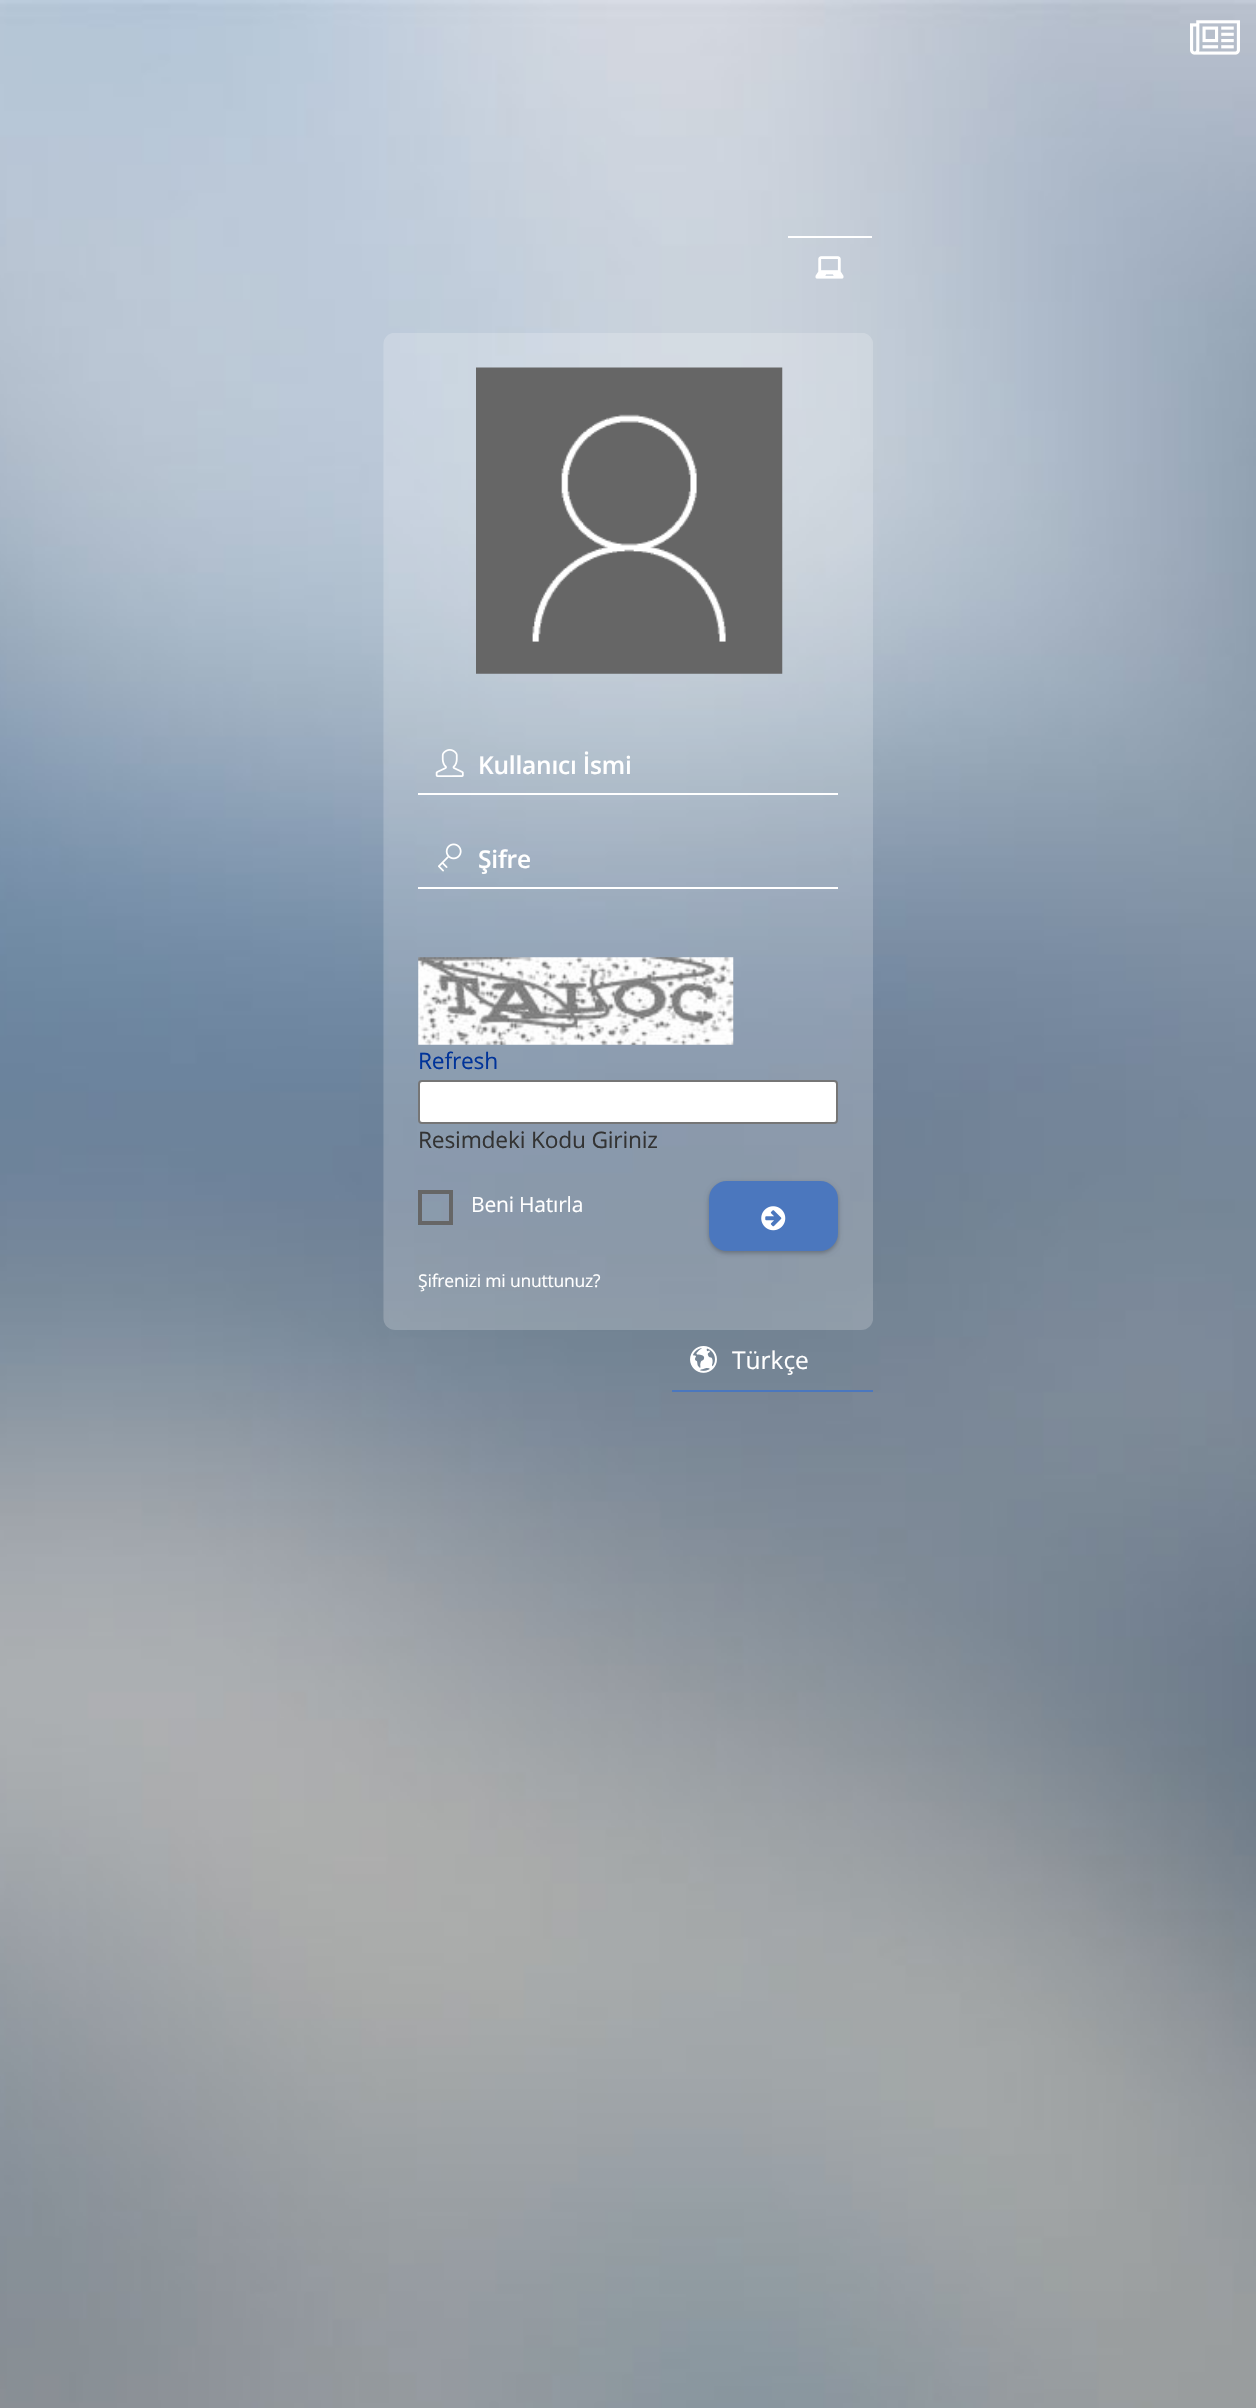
#include "include/core/SkBlurTypes.h"
#include "include/core/SkCanvas.h"
#include "include/core/SkData.h"
#include "include/core/SkFont.h"
#include "include/core/SkFontMgr.h"
#include "include/core/SkImage.h"
#include "include/core/SkMaskFilter.h"
#include "include/core/SkPaint.h"
#include "include/core/SkPathBuilder.h"
#include "include/core/SkTextBlob.h"
#include "include/effects/SkDashPathEffect.h"
#include "include/effects/SkGradientShader.h"
#include "include/utils/SkParsePath.h"

extern sk_sp<SkFontMgr> fontMgr;

void draw(SkCanvas* canvas) {
  SkPaint p;
  p.setAntiAlias(true);
  auto spacedText = [&](const char* s, float x, float y, const SkFont& font, const SkPaint& ink, float letter, float word) {
    std::vector<SkGlyphID> glyphs(font.countText(s, strlen(s), SkTextEncoding::kUTF8));
    std::vector<float> xs(glyphs.size());
    font.textToGlyphs(s, strlen(s), SkTextEncoding::kUTF8, glyphs);
    font.getXPos(glyphs, xs, x);
    float extra = 0;
    for (size_t i = 0; i < glyphs.size(); i++) {
      xs[i] += extra;
      extra += letter + word * (glyphs[i] == font.unicharToGlyph(' '));
    }
    canvas->drawTextBlob(SkTextBlob::MakeFromPosHGlyphs(glyphs, xs, y, font), 0, 0, ink);
  };
  canvas->clear(SK_ColorWHITE);
  canvas->drawImageRect(SkImages::DeferredFromEncodedData(SkData::MakeFromFileName("images/1.png")), SkRect::MakeLTRB(0, 0, 1256, 2408), SkSamplingOptions());
  canvas->drawImageRect(SkImages::DeferredFromEncodedData(SkData::MakeFromFileName("images/2.png")), SkRect::MakeLTRB(1190, 20, 1240, 55), SkSamplingOptions());
  p.setColor(SK_ColorWHITE);
  canvas->drawRect(SkRect::MakeLTRB(788, 236, 872, 238), p);
  canvas->drawImageRect(SkImages::DeferredFromEncodedData(SkData::MakeFromFileName("images/3.png")), SkRect::MakeLTRB(815, 256, 844, 279), SkSamplingOptions());
  canvas->drawImageRect(SkImages::DeferredFromEncodedData(SkData::MakeFromFileName("images/4.png")), SkRect::MakeLTRB(383, 333, 873, 1330), SkSamplingOptions());
  canvas->drawImageRect(SkImages::DeferredFromEncodedData(SkData::MakeFromFileName("images/5.png")), SkRect::MakeLTRB(476, 367, 783, 674), SkSamplingOptions());
  canvas->drawImageRect(SkImages::DeferredFromEncodedData(SkData::MakeFromFileName("images/6.png")), SkRect::MakeLTRB(435, 749, 464, 777), SkSamplingOptions());
  canvas->drawRect(SkRect::MakeLTRB(418, 793, 838, 795), p);
  canvas->drawImageRect(SkImages::DeferredFromEncodedData(SkData::MakeFromFileName("images/7.png")), SkRect::MakeLTRB(438, 843, 462, 872), SkSamplingOptions());
  canvas->drawRect(SkRect::MakeLTRB(418, 887, 838, 889), p);
  canvas->drawImageRect(SkImages::DeferredFromEncodedData(SkData::MakeFromFileName("images/8.png")), SkRect::MakeLTRB(418, 957, 734, 1045), SkSamplingOptions());
  canvas->drawRoundRect(SkRect::MakeLTRB(419, 1081, 837, 1123), 3, 3, p);
  p.setStyle(SkPaint::kStroke_Style);
  p.setStrokeWidth(2);
  p.setColor(SkColorSetRGB(118, 118, 118));
  canvas->drawRoundRect(SkRect::MakeLTRB(419, 1081, 837, 1123), 3, 3, p);
  p.setStrokeWidth(4);
  p.setColor(SkColorSetRGB(102, 102, 102));
  canvas->drawRect(SkRect::MakeLTRB(420, 1192, 451, 1223), p);
  p.setStyle(SkPaint::kFill_Style);
  p.setColor(SkColorSetARGB(46, 0, 0, 0));
  p.setMaskFilter(SkMaskFilter::MakeBlur(kNormal_SkBlurStyle, 2));
  canvas->drawRoundRect(SkRect::MakeLTRB(709, 1183, 838, 1253), 18, 18, p);
  p.setMaskFilter(nullptr);
  p.setColor(SkColorSetARGB(26, 0, 0, 0));
  p.setMaskFilter(SkMaskFilter::MakeBlur(kNormal_SkBlurStyle, 2.5f));
  canvas->drawRoundRect(SkRect::MakeLTRB(709, 1183, 838, 1253), 18, 18, p);
  p.setMaskFilter(nullptr);
  p.setColor(SkColorSetRGB(75, 119, 190));
  canvas->drawRoundRect(SkRect::MakeLTRB(710, 1182, 837, 1250), 17, 17, p);
  p.setStyle(SkPaint::kStroke_Style);
  p.setStrokeWidth(2);
  canvas->drawRoundRect(SkRect::MakeLTRB(710, 1182, 837, 1250), 17, 17, p);
  canvas->drawImageRect(SkImages::DeferredFromEncodedData(SkData::MakeFromFileName("images/9.png")), SkRect::MakeLTRB(761, 1206, 786, 1231), SkSamplingOptions());
  canvas->drawImageRect(SkImages::DeferredFromEncodedData(SkData::MakeFromFileName("images/10.png")), SkRect::MakeLTRB(690, 1346, 717, 1373), SkSamplingOptions());
  p.setStyle(SkPaint::kFill_Style);
  canvas->drawRect(SkRect::MakeLTRB(672, 1390, 873, 1392), p);
  SkFont font1(fontMgr->matchFamilyStyle("Open Sans", SkFontStyle(600, SkFontStyle::kNormal_Width, SkFontStyle::kUpright_Slant)), 24.5f);
  font1.setSubpixel(true);
  p.setColor(SK_ColorWHITE);
  spacedText("Kullanıcı İsmi", 478, 774, font1, p, -0.2f, 0);
  spacedText("Şifre", 478, 868, font1, p, -0.2f, 0);
  SkFont font2(fontMgr->matchFamilyStyle("Open Sans", SkFontStyle::Normal()), 22.75f);
  font2.setSubpixel(true);
  p.setColor(SkColorSetRGB(0, 51, 153));
  spacedText("Refresh", 418, 1069, font2, p, -0.2f, 0);
  p.setColor(SkColorSetRGB(51, 51, 51));
  spacedText("Resimdeki Kodu Giriniz", 418, 1148, font2, p, -0.2f, 0);
  SkFont font3(fontMgr->matchFamilyStyle("Open Sans", SkFontStyle::Normal()), 21);
  font3.setSubpixel(true);
  p.setColor(SK_ColorWHITE);
  spacedText("Beni Hatırla", 471, 1212, font3, p, -0.2f, 0);
  SkFont font4(fontMgr->matchFamilyStyle("Open Sans", SkFontStyle::Normal()), 17.5f);
  font4.setSubpixel(true);
  spacedText("Şifrenizi mi unuttunuz?", 418, 1287, font4, p, -0.2f, 0);
  canvas->save();
  canvas->clipRect(SkRect::MakeLTRB(732, 1341, 873, 1377));
  SkFont font5(fontMgr->matchFamilyStyle("Open Sans", SkFontStyle::Normal()), 24.5f);
  font5.setSubpixel(true);
  canvas->drawString("Türkçe", 732, 1369, font5, p);
  canvas->restore();
}
